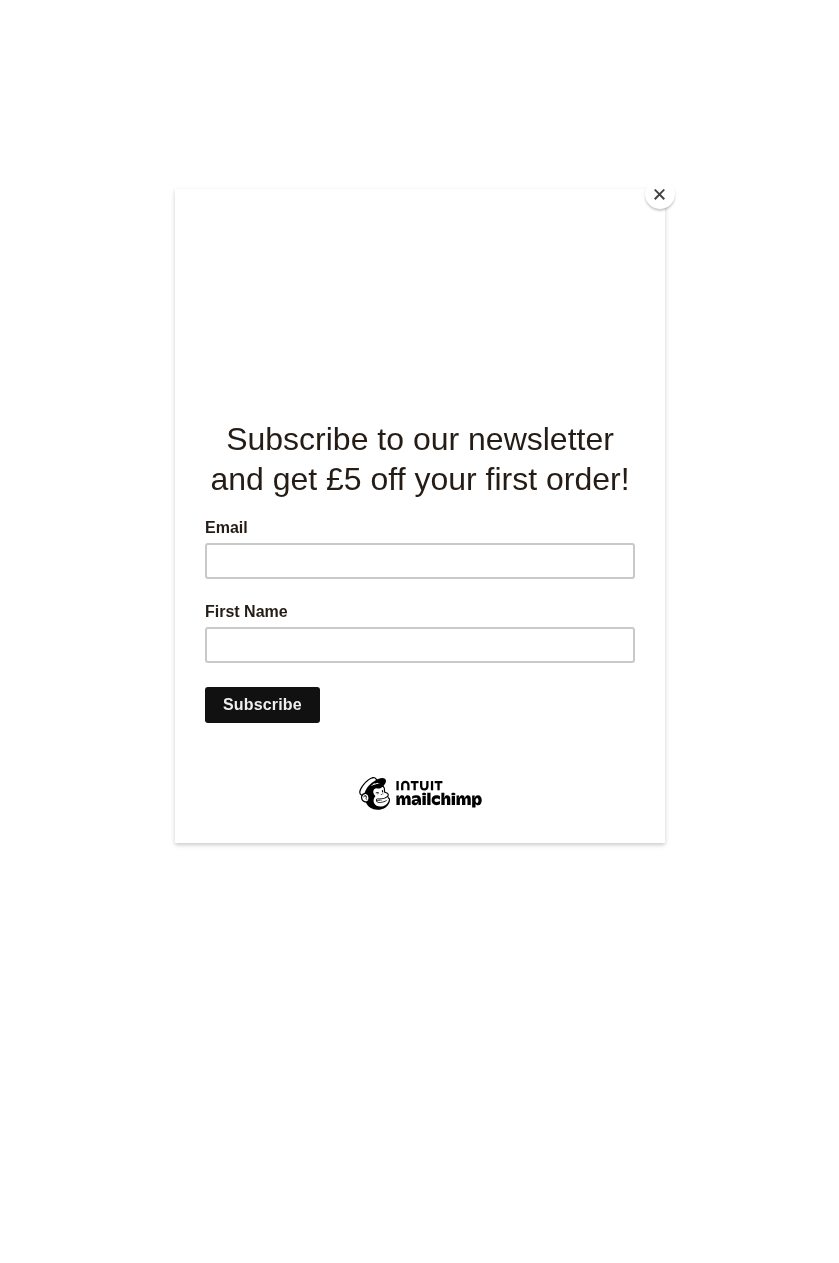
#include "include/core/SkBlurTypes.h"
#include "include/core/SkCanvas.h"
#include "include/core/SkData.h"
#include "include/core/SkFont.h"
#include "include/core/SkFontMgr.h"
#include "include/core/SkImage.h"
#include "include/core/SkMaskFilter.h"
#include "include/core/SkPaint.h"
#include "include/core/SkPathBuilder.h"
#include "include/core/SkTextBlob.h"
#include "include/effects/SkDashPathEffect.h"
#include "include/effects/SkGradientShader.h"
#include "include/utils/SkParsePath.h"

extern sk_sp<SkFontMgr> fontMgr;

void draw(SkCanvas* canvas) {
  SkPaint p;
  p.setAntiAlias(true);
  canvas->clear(SK_ColorWHITE);
  p.setColor(SkColorSetARGB(51, 0, 0, 0));
  p.setMaskFilter(SkMaskFilter::MakeBlur(kNormal_SkBlurStyle, 1));
  canvas->drawRoundRect(SkRect::MakeLTRB(645, 181, 675, 211), 15, 15, p);
  p.setMaskFilter(nullptr);
  canvas->save();
  canvas->clipPath(SkPathBuilder(SkPathFillType::kEvenOdd).moveTo(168, 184).lineTo(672, 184).lineTo(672, 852).lineTo(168, 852).close().moveTo(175, 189).lineTo(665, 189).lineTo(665, 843).lineTo(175, 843).close().detach(), true);
  p.setMaskFilter(SkMaskFilter::MakeBlur(kNormal_SkBlurStyle, 2));
  canvas->drawRect(SkRect::MakeLTRB(175, 191, 665, 845), p);
  p.setMaskFilter(nullptr);
  canvas->restore();
  p.setColor(SK_ColorWHITE);
  canvas->drawCircle(660, 194, 15, p);
  p.setColor(SkColorSetRGB(65, 65, 65));
  canvas->drawPath(SkPathBuilder().moveTo(663.5f, 189).lineTo(665, 190).lineTo(655.5f, 200).lineTo(654, 198.5f).close().detach(), p);
  canvas->drawPath(SkPathBuilder().moveTo(654, 190).lineTo(655.5f, 189).lineTo(665, 198.5f).lineTo(663.5f, 200).close().detach(), p);
  canvas->drawImageRect(SkImages::DeferredFromEncodedData(SkData::MakeFromFileName("images/1.png")), SkRect::MakeLTRB(205, 427, 635, 810), SkSamplingOptions());
}
